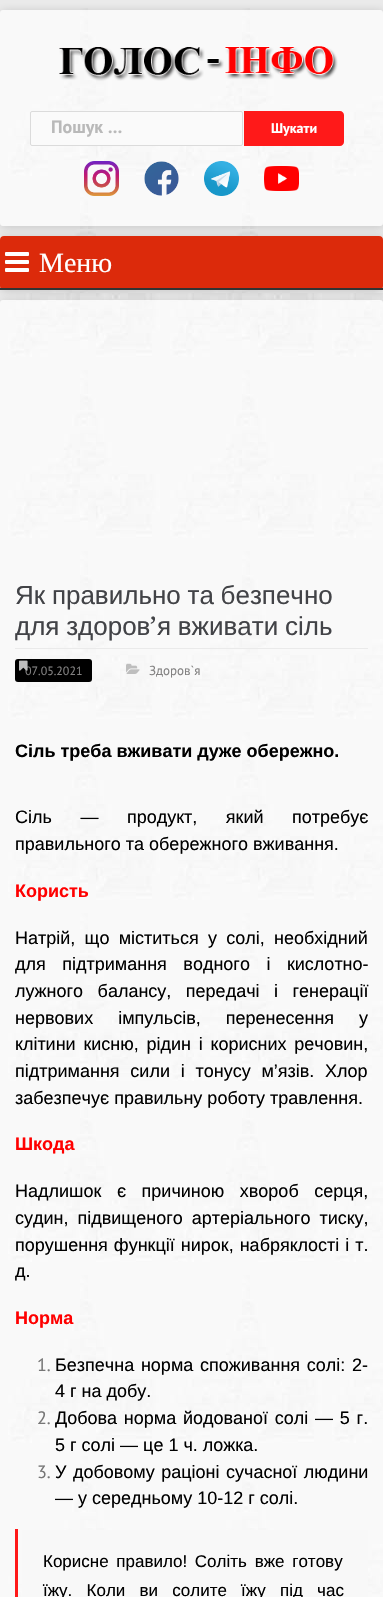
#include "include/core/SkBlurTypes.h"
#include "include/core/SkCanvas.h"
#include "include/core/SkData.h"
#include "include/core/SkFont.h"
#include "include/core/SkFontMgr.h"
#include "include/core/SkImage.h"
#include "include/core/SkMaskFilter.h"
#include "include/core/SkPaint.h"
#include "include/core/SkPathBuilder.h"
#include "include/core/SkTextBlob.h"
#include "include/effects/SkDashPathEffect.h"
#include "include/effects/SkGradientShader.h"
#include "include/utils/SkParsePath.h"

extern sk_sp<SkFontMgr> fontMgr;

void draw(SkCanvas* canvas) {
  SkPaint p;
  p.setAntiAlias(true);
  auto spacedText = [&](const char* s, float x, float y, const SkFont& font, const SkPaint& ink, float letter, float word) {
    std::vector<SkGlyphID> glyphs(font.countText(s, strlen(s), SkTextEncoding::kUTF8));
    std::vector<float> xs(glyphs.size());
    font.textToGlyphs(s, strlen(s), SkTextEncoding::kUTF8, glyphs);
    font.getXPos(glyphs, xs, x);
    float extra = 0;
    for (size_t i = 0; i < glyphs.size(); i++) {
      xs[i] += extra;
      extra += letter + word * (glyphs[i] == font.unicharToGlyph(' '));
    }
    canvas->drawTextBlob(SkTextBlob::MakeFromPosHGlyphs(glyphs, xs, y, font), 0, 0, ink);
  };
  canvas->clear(SK_ColorWHITE);
  canvas->drawImageRect(SkImages::DeferredFromEncodedData(SkData::MakeFromFileName("images/1.png")), SkRect::MakeLTRB(0, 0, 383, 1597), SkSamplingOptions());
  canvas->save();
  canvas->clipPath(SkPathBuilder(SkPathFillType::kEvenOdd).moveTo(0, 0).lineTo(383, 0).lineTo(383, 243).lineTo(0, 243).close().moveTo(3, 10).lineTo(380, 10).cubicTo(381.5f, 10, 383, 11.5f, 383, 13).lineTo(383, 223).cubicTo(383, 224.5f, 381.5f, 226, 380, 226).lineTo(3, 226).cubicTo(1.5f, 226, 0, 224.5f, 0, 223).lineTo(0, 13).cubicTo(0, 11.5f, 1.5f, 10, 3, 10).close().detach(), true);
  p.setColor(SkColorSetRGB(197, 197, 197));
  p.setMaskFilter(SkMaskFilter::MakeBlur(kNormal_SkBlurStyle, 5));
  canvas->drawRoundRect(SkRect::MakeLTRB(1, 11, 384, 227), 3, 3, p);
  p.setMaskFilter(nullptr);
  canvas->restore();
  p.setColor(SkColorSetARGB(179, 255, 255, 255));
  canvas->drawRoundRect(SkRect::MakeLTRB(0, 10, 383, 226), 3, 3, p);
  canvas->drawImageRect(SkImages::DeferredFromEncodedData(SkData::MakeFromFileName("images/2.png")), SkRect::MakeLTRB(59, 46, 338, 81), SkSamplingOptions());
  p.setColor(SkColorSetRGB(250, 250, 250));
  canvas->drawRoundRect(SkRect::MakeLTRB(30.5f, 111.5f, 242.5f, 145.5f), 1.5f, 1.5f, p);
  p.setStyle(SkPaint::kStroke_Style);
  p.setStrokeWidth(1);
  p.setColor(SkColorSetRGB(219, 219, 219));
  canvas->drawRoundRect(SkRect::MakeLTRB(30.5f, 111.5f, 242.5f, 145.5f), 1.5f, 1.5f, p);
  p.setStyle(SkPaint::kFill_Style);
  p.setColor(SkColorSetRGB(255, 25, 25));
  canvas->drawPath(SkPathBuilder().moveTo(244, 111).lineTo(340, 111).cubicTo(342, 111, 344, 113, 344, 115).lineTo(344, 142).cubicTo(344, 144, 342, 146, 340, 146).lineTo(244, 146).close().detach(), p);
  canvas->drawImageRect(SkImages::DeferredFromEncodedData(SkData::MakeFromFileName("images/3.png")), SkRect::MakeLTRB(84, 161, 119, 196), SkSamplingOptions());
  canvas->drawImageRect(SkImages::DeferredFromEncodedData(SkData::MakeFromFileName("images/4.png")), SkRect::MakeLTRB(144, 161, 179, 196), SkSamplingOptions());
  canvas->drawImageRect(SkImages::DeferredFromEncodedData(SkData::MakeFromFileName("images/5.png")), SkRect::MakeLTRB(204, 161, 239, 196), SkSamplingOptions());
  canvas->drawImageRect(SkImages::DeferredFromEncodedData(SkData::MakeFromFileName("images/6.png")), SkRect::MakeLTRB(264, 166, 299, 191), SkSamplingOptions());
  p.setColor(SkColorSetRGB(197, 197, 197));
  p.setMaskFilter(SkMaskFilter::MakeBlur(kNormal_SkBlurStyle, 5));
  canvas->drawRoundRect(SkRect::MakeLTRB(1, 237, 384, 291), 3, 3, p);
  p.setMaskFilter(nullptr);
  p.setColor(SkColorSetARGB(179, 255, 255, 255));
  canvas->drawRoundRect(SkRect::MakeLTRB(0, 236, 383, 290), 3, 3, p);
  canvas->save();
  canvas->clipPath(SkPathBuilder(SkPathFillType::kEvenOdd).moveTo(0, 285).lineTo(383, 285).lineTo(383, 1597).lineTo(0, 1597).close().moveTo(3, 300).lineTo(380, 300).cubicTo(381.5f, 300, 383, 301.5f, 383, 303).lineTo(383, 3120).cubicTo(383, 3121.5f, 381.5f, 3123, 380, 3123).lineTo(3, 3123).cubicTo(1.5f, 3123, 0, 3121.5f, 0, 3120).lineTo(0, 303).cubicTo(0, 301.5f, 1.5f, 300, 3, 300).close().detach(), true);
  p.setColor(SkColorSetRGB(197, 197, 197));
  p.setMaskFilter(SkMaskFilter::MakeBlur(kNormal_SkBlurStyle, 5));
  canvas->drawRoundRect(SkRect::MakeLTRB(1, 301, 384, 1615), 3, 3, p);
  p.setMaskFilter(nullptr);
  canvas->restore();
  p.setColor(SkColorSetRGB(220, 42, 11));
  canvas->drawRoundRect(SkRect::MakeLTRB(0, 236, 383, 290), 4, 4, p);
  canvas->drawImageRect(SkImages::DeferredFromEncodedData(SkData::MakeFromFileName("images/7.png")), SkRect::MakeLTRB(5, 252, 29, 272), SkSamplingOptions());
  p.setColor(SkColorSetRGB(51, 51, 51));
  canvas->drawRect(SkRect::MakeLTRB(0, 288, 383, 290), p);
  p.setColor(SkColorSetARGB(179, 255, 255, 255));
  canvas->drawRoundRect(SkRect::MakeLTRB(0, 300, 383, 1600), 3, 3, p);
  p.setColor(SkColorSetRGB(234, 234, 234));
  canvas->drawRect(SkRect::MakeLTRB(15, 648, 368, 649), p);
  p.setColor(SK_ColorBLACK);
  canvas->drawRoundRect(SkRect::MakeLTRB(15, 659, 92, 682), 3, 3, p);
  canvas->drawImageRect(SkImages::DeferredFromEncodedData(SkData::MakeFromFileName("images/9.png")), SkRect::MakeLTRB(126, 663, 140, 674), SkSamplingOptions());
  p.setColor(SkColorSetRGB(248, 248, 248));
  canvas->drawRect(SkRect::MakeLTRB(22, 1530, 368, 1597), p);
  p.setColor(SkColorSetRGB(255, 25, 25));
  canvas->drawRect(SkRect::MakeLTRB(15, 1529, 18, 1597), p);
  SkFont font1(fontMgr->matchFamilyStyle("PT Sans", SkFontStyle::Bold()), 18);
  font1.setSubpixel(true);
  p.setColor(SkColorSetRGB(185, 185, 185));
  canvas->drawString("Пошук …", 51, 133, font1, p);
  SkFont font2(fontMgr->matchFamilyStyle("PT Sans", SkFontStyle::Bold()), 14);
  font2.setSubpixel(true);
  p.setColor(SK_ColorWHITE);
  canvas->drawString("Шукати", 271, 133, font2, p);
  SkFont font3(fontMgr->matchFamilyStyle("Liberation Serif", SkFontStyle::Normal()), 28);
  font3.setSubpixel(true);
  canvas->drawString("Меню", 39, 272, font3, p);
  SkFont font4(fontMgr->matchFamilyStyle("Liberation Sans", SkFontStyle::Normal()), 26);
  font4.setSubpixel(true);
  p.setColor(SkColorSetRGB(66, 67, 71));
  spacedText("Як правильно та безпечно", 15, 604, font4, p, 0, -0.5f);
  spacedText("для здоров", 15, 635, font4, p, 0, -0.5f);
  SkFont font5(fontMgr->matchFamilyStyle("Droid Serif", SkFontStyle::Normal()), 26);
  font5.setSubpixel(true);
  canvas->drawString("’", 150, 635, font5, p);
  spacedText("я вживати сіль", 157, 635, font4, p, 0, -0.5f);
  SkFont font6(fontMgr->matchFamilyStyle("PT Sans", SkFontStyle::Normal()), 12);
  font6.setSubpixel(true);
  p.setColor(SkColorSetRGB(131, 130, 130));
  canvas->drawString("07.05.2021", 25, 675, font6, p);
  canvas->drawImageRect(SkImages::DeferredFromEncodedData(SkData::MakeFromFileName("images/8.png")), SkRect::MakeLTRB(19, 660, 28, 671), SkSamplingOptions());
  SkFont font7(fontMgr->matchFamilyStyle("PT Sans", SkFontStyle::Normal()), 13);
  font7.setSubpixel(true);
  canvas->drawString("Здоров`я", 149, 675, font7, p);
  SkFont font8(fontMgr->matchFamilyStyle("Liberation Sans", SkFontStyle::Bold()), 18);
  font8.setSubpixel(true);
  p.setColor(SK_ColorBLACK);
  canvas->drawString("Сіль треба вживати дуже обережно.", 15, 757, font8, p);
  SkFont font9(fontMgr->matchFamilyStyle("Liberation Sans", SkFontStyle::Normal()), 18);
  font9.setSubpixel(true);
  spacedText("Сіль — продукт, який потребує", 15, 823, font9, p, 0, 23.5f);
  canvas->drawString("правильного та обережного вживання.", 15, 850, font9, p);
  p.setColor(SkColorSetRGB(255, 0, 0));
  canvas->drawString("Користь", 15, 897, font8, p);
  p.setColor(SK_ColorBLACK);
  spacedText("Натрій, що міститься у солі, необхідний", 15, 944, font9, p, 0, 4.25f);
  spacedText("для підтримання водного і кислотно-", 15, 970, font9, p, 0, 11.5f);
  spacedText("лужного балансу, передачі і генерації", 15, 997, font9, p, 0, 9.5f);
  spacedText("нервових імпульсів, перенесення у", 15, 1024, font9, p, 0, 20);
  spacedText("клітини кисню, рідин і корисних речовин,", 15, 1050, font9, p, 0, 2.75f);
  spacedText("підтримання сили і тонусу м’язів. Хлор", 15, 1077, font9, p, 0, 5.75f);
  canvas->drawString("забезпечує правильну роботу травлення.", 15, 1104, font9, p);
  p.setColor(SkColorSetRGB(255, 0, 0));
  canvas->drawString("Шкода", 15, 1150, font8, p);
  p.setColor(SK_ColorBLACK);
  spacedText("Надлишок є причиною хвороб серця,", 15, 1197, font9, p, 0, 10.5f);
  spacedText("судин, підвищеного артеріального тиску,", 15, 1224, font9, p, 0, 4);
  spacedText("порушення функції нирок, набряклості і т.", 15, 1251, font9, p, 0, 1);
  canvas->drawString("д.", 15, 1277, font9, p);
  p.setColor(SkColorSetRGB(255, 0, 0));
  canvas->drawString("Норма", 15, 1324, font8, p);
  SkFont font10(fontMgr->matchFamilyStyle("PT Sans", SkFontStyle::Normal()), 18);
  font10.setSubpixel(true);
  p.setColor(SkColorSetRGB(118, 118, 118));
  canvas->drawString("1.", 37, 1371, font10, p);
  p.setColor(SK_ColorBLACK);
  spacedText("Безпечна норма споживання солі: 2-", 55, 1371, font9, p, 0, 1.75f);
  canvas->drawString("4 г на добу.", 55, 1397, font9, p);
  p.setColor(SkColorSetRGB(118, 118, 118));
  canvas->drawString("2.", 37, 1424, font10, p);
  p.setColor(SK_ColorBLACK);
  spacedText("Добова норма йодованої солі — 5 г.", 55, 1424, font9, p, 0, 1.75f);
  canvas->drawString("5 г солі — це 1 ч. ложка.", 55, 1451, font9, p);
  p.setColor(SkColorSetRGB(118, 118, 118));
  canvas->drawString("3.", 37, 1478, font10, p);
  p.setColor(SK_ColorBLACK);
  spacedText("У добовому раціоні сучасної людини", 55, 1478, font9, p, 0, 1.5f);
  canvas->drawString("— у середньому 10-12 г солі.", 55, 1504, font9, p);
  SkFont font11(fontMgr->matchFamilyStyle("Liberation Sans", SkFontStyle::Normal()), 17);
  font11.setSubpixel(true);
  spacedText("Корисне правило! Соліть вже готову", 43, 1567, font11, p, 0, 3);
  spacedText("їжу. Коли ви солите їжу під час", 43, 1596, font11, p, 0, 9.5f);
}
